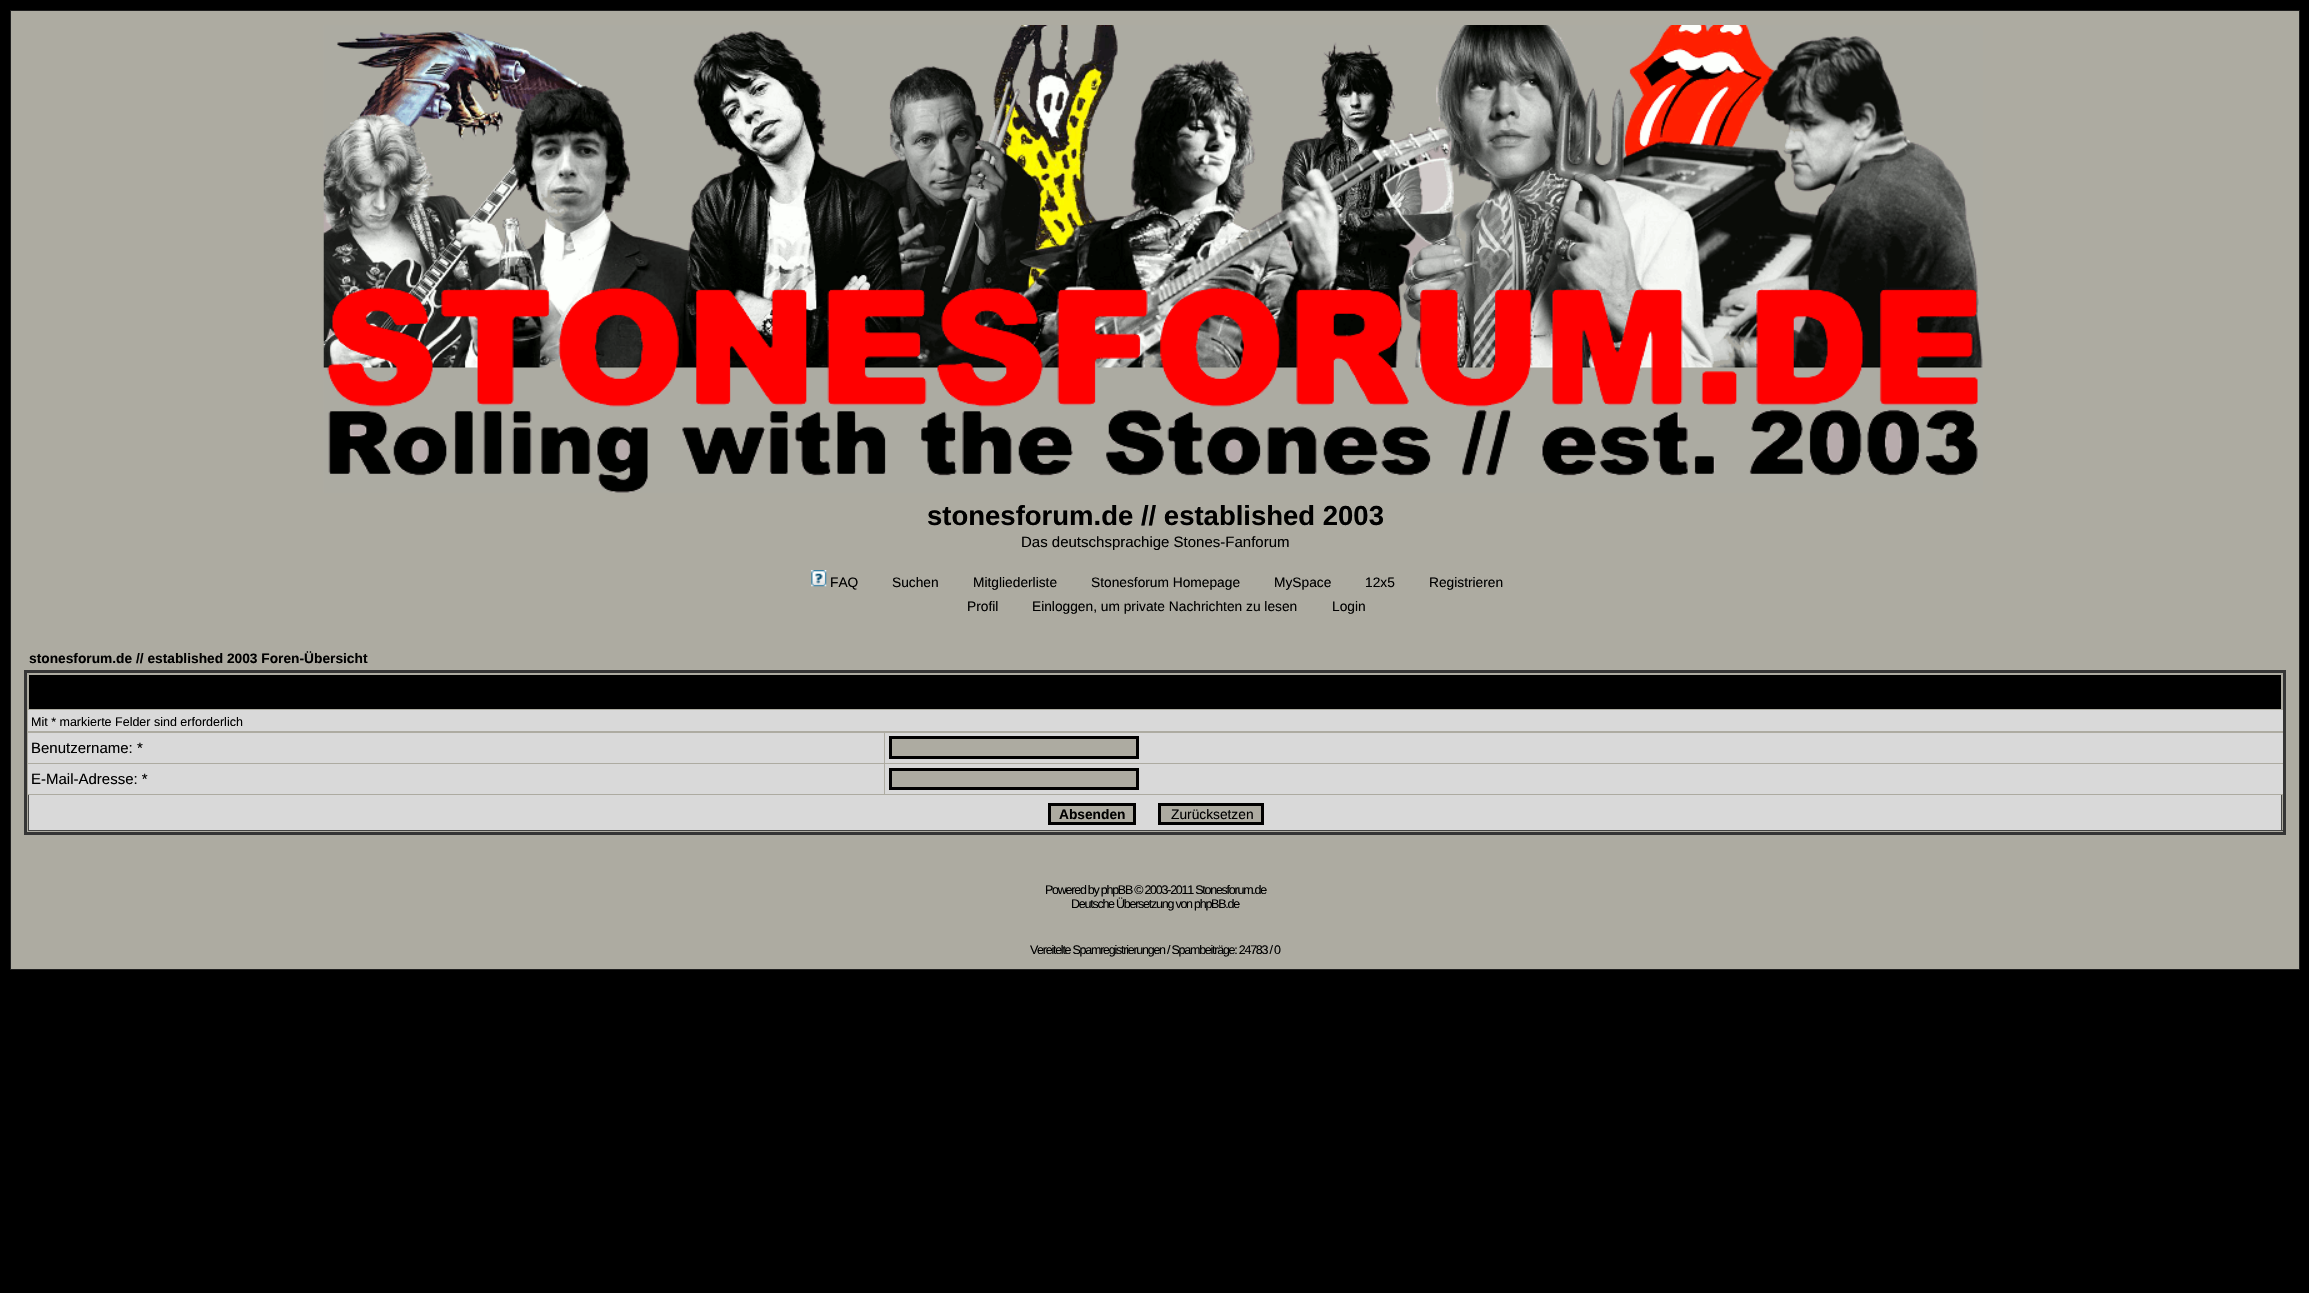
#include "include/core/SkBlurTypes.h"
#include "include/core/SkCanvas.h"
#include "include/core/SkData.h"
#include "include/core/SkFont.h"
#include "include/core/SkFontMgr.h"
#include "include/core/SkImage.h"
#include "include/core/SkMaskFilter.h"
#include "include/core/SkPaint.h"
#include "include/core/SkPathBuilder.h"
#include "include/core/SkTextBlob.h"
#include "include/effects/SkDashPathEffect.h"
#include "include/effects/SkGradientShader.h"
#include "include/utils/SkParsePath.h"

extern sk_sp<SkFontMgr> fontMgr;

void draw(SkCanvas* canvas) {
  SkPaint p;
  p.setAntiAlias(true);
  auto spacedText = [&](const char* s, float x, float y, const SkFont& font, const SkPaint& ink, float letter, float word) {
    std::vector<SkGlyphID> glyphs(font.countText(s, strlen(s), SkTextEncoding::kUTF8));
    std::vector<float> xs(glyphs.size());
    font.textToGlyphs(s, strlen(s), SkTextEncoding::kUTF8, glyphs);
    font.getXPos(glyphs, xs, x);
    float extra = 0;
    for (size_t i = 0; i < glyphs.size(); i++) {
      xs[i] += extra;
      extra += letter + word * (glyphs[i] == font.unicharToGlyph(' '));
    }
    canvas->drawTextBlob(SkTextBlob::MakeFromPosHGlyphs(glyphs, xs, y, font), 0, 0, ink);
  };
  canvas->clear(SK_ColorBLACK);
  p.setColor(SkColorSetRGB(173, 171, 161));
  canvas->drawRect(SkRect::MakeLTRB(10.5f, 10.5f, 2299.5f, 969.5f), p);
  p.setStyle(SkPaint::kStroke_Style);
  p.setStrokeWidth(1);
  p.setColor(SkColorSetRGB(32, 32, 32));
  canvas->drawRect(SkRect::MakeLTRB(10.5f, 10.5f, 2299.5f, 969.5f), p);
  canvas->drawImageRect(SkImages::DeferredFromEncodedData(SkData::MakeFromFileName("images/1.png")), SkRect::MakeLTRB(323, 25, 1983, 493), SkSamplingOptions());
  canvas->drawImageRect(SkImages::DeferredFromEncodedData(SkData::MakeFromFileName("images/2.png")), SkRect::MakeLTRB(811, 570, 827, 587), SkSamplingOptions());
  p.setStrokeWidth(3);
  p.setColor(SkColorSetRGB(53, 53, 53));
  canvas->drawRect(SkRect::MakeLTRB(25.5f, 671.5f, 2284.5f, 833.5f), p);
  p.setStyle(SkPaint::kFill_Style);
  p.setColor(SK_ColorBLACK);
  canvas->drawRect(SkRect::MakeLTRB(29, 675, 2281, 709), p);
  p.setColor(SkColorSetRGB(217, 217, 217));
  canvas->drawRect(SkRect::MakeLTRB(28, 710, 2283, 731), p);
  canvas->drawRect(SkRect::MakeLTRB(28, 733, 884, 763), p);
  canvas->drawRect(SkRect::MakeLTRB(885, 733, 2283, 763), p);
  p.setColor(SkColorSetRGB(173, 171, 161));
  canvas->drawRect(SkRect::MakeLTRB(890.5f, 737.5f, 1137.5f, 757.5f), p);
  p.setStyle(SkPaint::kStroke_Style);
  p.setColor(SK_ColorBLACK);
  canvas->drawRect(SkRect::MakeLTRB(890.5f, 737.5f, 1137.5f, 757.5f), p);
  p.setStyle(SkPaint::kFill_Style);
  p.setColor(SkColorSetRGB(217, 217, 217));
  canvas->drawRect(SkRect::MakeLTRB(28, 764, 884, 794), p);
  canvas->drawRect(SkRect::MakeLTRB(885, 764, 2283, 794), p);
  p.setColor(SkColorSetRGB(173, 171, 161));
  canvas->drawRect(SkRect::MakeLTRB(890.5f, 769.5f, 1137.5f, 788.5f), p);
  p.setStyle(SkPaint::kStroke_Style);
  p.setColor(SK_ColorBLACK);
  canvas->drawRect(SkRect::MakeLTRB(890.5f, 769.5f, 1137.5f, 788.5f), p);
  p.setStyle(SkPaint::kFill_Style);
  p.setColor(SkColorSetRGB(217, 217, 217));
  canvas->drawRect(SkRect::MakeLTRB(29, 795, 2281, 830), p);
  p.setColor(SkColorSetRGB(69, 69, 69));
  canvas->drawRect(SkRect::MakeLTRB(2281, 795, 2282, 831), p);
  canvas->drawRect(SkRect::MakeLTRB(28, 830, 2283, 831), p);
  canvas->drawRect(SkRect::MakeLTRB(28, 795, 29, 831), p);
  p.setColor(SkColorSetRGB(173, 171, 161));
  canvas->drawRect(SkRect::MakeLTRB(1049.5f, 804.5f, 1134.5f, 823.5f), p);
  p.setStyle(SkPaint::kStroke_Style);
  p.setColor(SK_ColorBLACK);
  canvas->drawRect(SkRect::MakeLTRB(1049.5f, 804.5f, 1134.5f, 823.5f), p);
  p.setStyle(SkPaint::kFill_Style);
  p.setColor(SkColorSetRGB(173, 171, 161));
  canvas->drawRect(SkRect::MakeLTRB(1159.5f, 804.5f, 1262.5f, 823.5f), p);
  p.setStyle(SkPaint::kStroke_Style);
  p.setColor(SK_ColorBLACK);
  canvas->drawRect(SkRect::MakeLTRB(1159.5f, 804.5f, 1262.5f, 823.5f), p);
  SkFont font1(fontMgr->matchFamilyStyle("Liberation Sans", SkFontStyle::Bold()), 27.5f);
  font1.setSubpixel(true);
  p.setStyle(SkPaint::kFill_Style);
  canvas->drawString("stonesforum.de // established 2003", 927, 525, font1, p);
  SkFont font2(fontMgr->matchFamilyStyle("Liberation Sans", SkFontStyle::Normal()), 15);
  font2.setSubpixel(true);
  canvas->drawString("Das deutschsprachige Stones-Fanforum", 1021, 547, font2, p);
  SkFont font3(fontMgr->matchFamilyStyle("Liberation Sans", SkFontStyle::Normal()), 13.75f);
  font3.setSubpixel(true);
  canvas->drawString("FAQ", 830, 587, font3, p);
  canvas->drawString("Suchen", 892, 587, font3, p);
  canvas->drawString("Mitgliederliste", 973, 587, font3, p);
  canvas->drawString("Stonesforum Homepage", 1091, 587, font3, p);
  canvas->drawString("MySpace", 1274, 587, font3, p);
  canvas->drawString("12x5", 1365, 587, font3, p);
  canvas->drawString("Registrieren", 1429, 587, font3, p);
  canvas->drawString("Profil", 967, 611, font3, p);
  canvas->drawString("Einloggen, um private Nachrichten zu lesen", 1032, 611, font3, p);
  canvas->drawString("Login", 1332, 611, font3, p);
  SkFont font4(fontMgr->matchFamilyStyle("Liberation Sans", SkFontStyle::Bold()), 13.75f);
  font4.setSubpixel(true);
  canvas->drawString("stonesforum.de // established 2003 Foren-Übersicht", 29, 663, font4, p);
  SkFont font5(fontMgr->matchFamilyStyle("Liberation Sans", SkFontStyle::Normal()), 12.5f);
  font5.setSubpixel(true);
  canvas->drawString("Mit * markierte Felder sind erforderlich", 31, 726, font5, p);
  canvas->drawString("Benutzername: *", 31, 753, font2, p);
  canvas->drawString("E-Mail-Adresse: *", 31, 784, font2, p);
  canvas->drawString("Absenden", 1059, 819, font4, p);
  canvas->drawString("Zurücksetzen", 1171, 819, font3, p);
  spacedText("Powered by phpBB © 2003-2011 Stonesforum.de", 1045, 894, font5, p, -1.25f, 0);
  spacedText("Deutsche Übersetzung von phpBB.de", 1071, 908, font5, p, -1.25f, 0);
  spacedText("Vereitelte Spamregistrierungen / Spambeiträge: 24783 / 0", 1030, 954, font5, p, -1.25f, 0);
}
